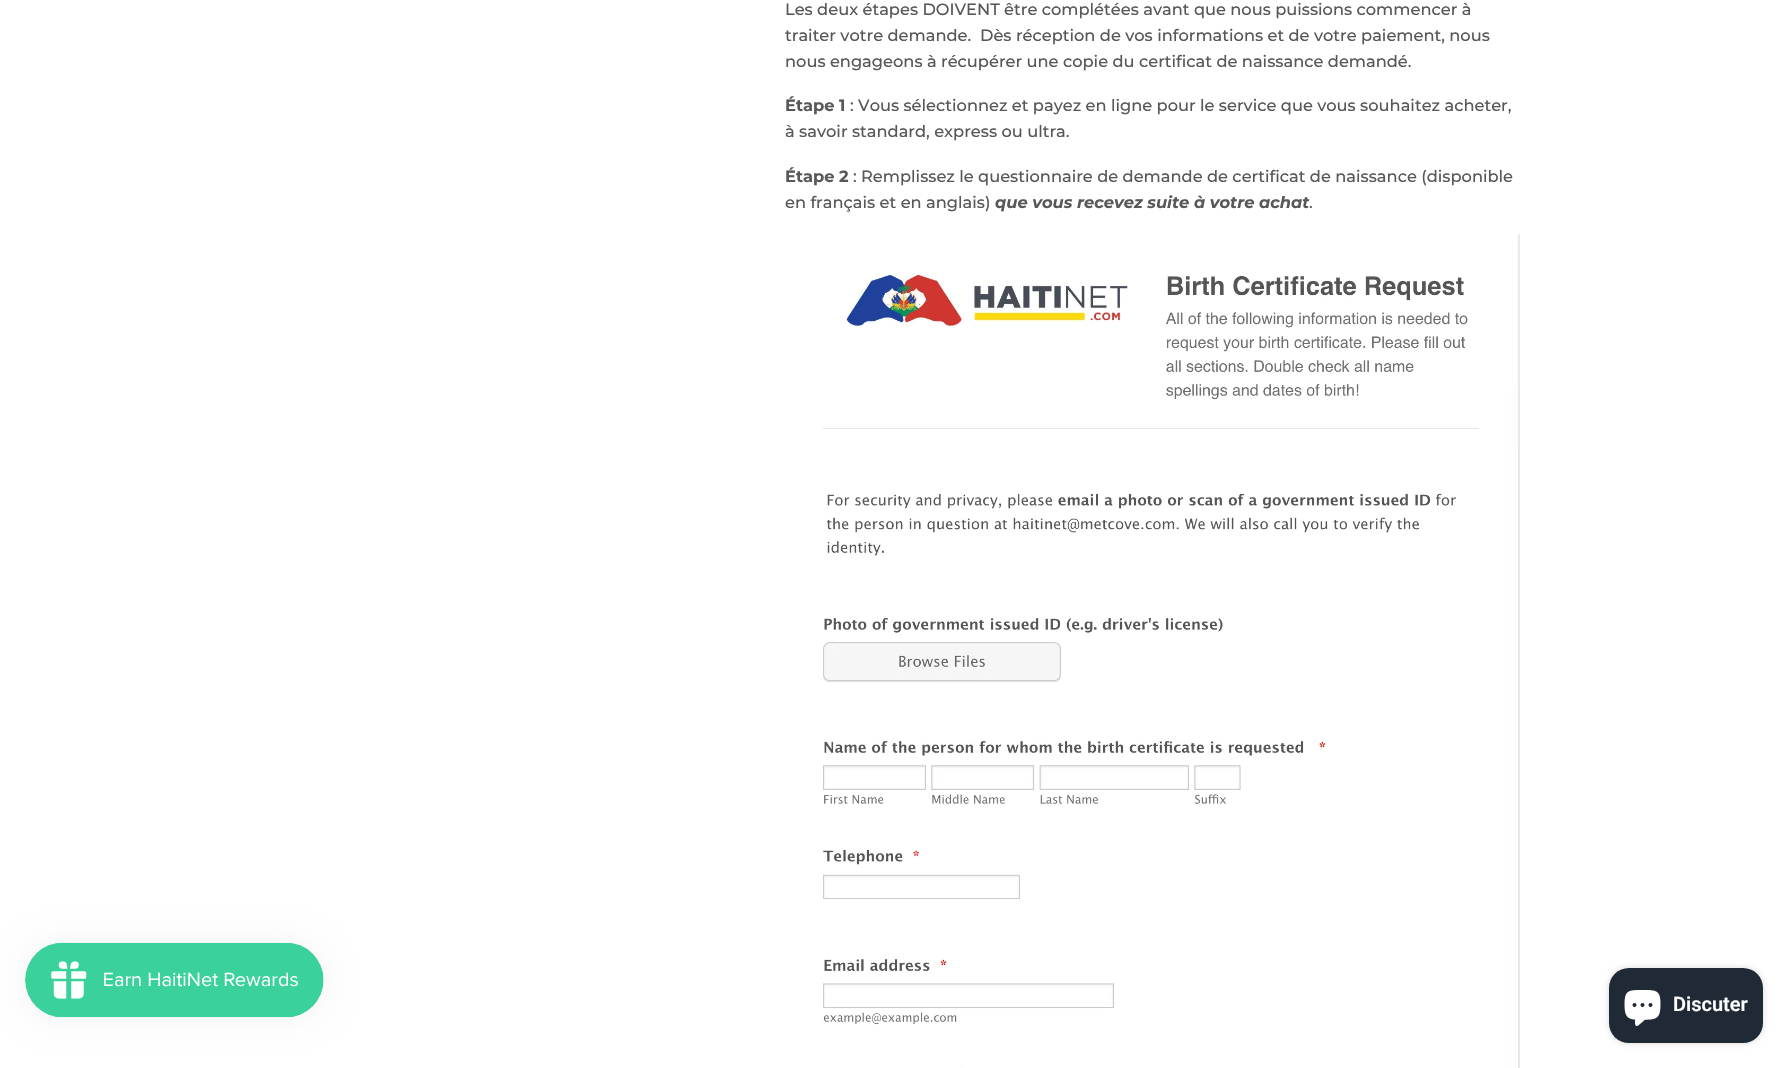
#include "include/core/SkBlurTypes.h"
#include "include/core/SkCanvas.h"
#include "include/core/SkData.h"
#include "include/core/SkFont.h"
#include "include/core/SkFontMgr.h"
#include "include/core/SkImage.h"
#include "include/core/SkMaskFilter.h"
#include "include/core/SkPaint.h"
#include "include/core/SkPathBuilder.h"
#include "include/core/SkTextBlob.h"
#include "include/effects/SkDashPathEffect.h"
#include "include/effects/SkGradientShader.h"
#include "include/utils/SkParsePath.h"

extern sk_sp<SkFontMgr> fontMgr;

void draw(SkCanvas* canvas) {
  SkPaint p;
  p.setAntiAlias(true);
  canvas->clear(SK_ColorWHITE);
  canvas->drawImageRect(SkImages::DeferredFromEncodedData(SkData::MakeFromFileName("images/1.png")), SkRect::MakeLTRB(823, 233, 1520, 1068), SkSamplingOptions());
  p.setColor(SkColorSetARGB(13, 0, 0, 0));
  p.setMaskFilter(SkMaskFilter::MakeBlur(kNormal_SkBlurStyle, 15.5f));
  canvas->drawRoundRect(SkRect::MakeLTRB(25, 943, 324, 1018), 37.5f, 37.5f, p);
  p.setMaskFilter(nullptr);
  canvas->drawImageRect(SkImages::DeferredFromEncodedData(SkData::MakeFromFileName("images/2.png")), SkRect::MakeLTRB(25, 942, 324, 1018), SkSamplingOptions());
  p.setColor(SkColorSetARGB(38, 0, 0, 0));
  p.setMaskFilter(SkMaskFilter::MakeBlur(kNormal_SkBlurStyle, 3));
  canvas->drawRoundRect(SkRect::MakeLTRB(1609, 968, 1763, 1043), 20, 20, p);
  p.setMaskFilter(nullptr);
  p.setColor(SkColorSetRGB(32, 42, 54));
  canvas->drawRoundRect(SkRect::MakeLTRB(1609, 968, 1763, 1043), 20, 20, p);
  canvas->drawImageRect(SkImages::DeferredFromEncodedData(SkData::MakeFromFileName("images/3.png")), SkRect::MakeLTRB(1624, 990, 1661, 1026), SkSamplingOptions());
  SkFont font1(fontMgr->matchFamilyStyle("Montserrat", SkFontStyle(500, SkFontStyle::kNormal_Width, SkFontStyle::kUpright_Slant)), 16.25f);
  font1.setSubpixel(true);
  p.setColor(SkColorSetRGB(88, 88, 88));
  canvas->drawString("Les deux étapes DOIVENT être complétées avant que nous puissions commencer à", 785, 15, font1, p);
  canvas->drawString("traiter votre demande.", 785, 41, font1, p);
  canvas->drawString("Dès réception de vos informations et de votre paiement, nous", 980, 41, font1, p);
  canvas->drawString("nous engageons à récupérer une copie du certificat de naissance demandé.", 785, 67, font1, p);
  SkFont font2(fontMgr->matchFamilyStyle("Montserrat", SkFontStyle::Bold()), 16.25f);
  font2.setSubpixel(true);
  canvas->drawString("Étape 1", 785, 111, font2, p);
  canvas->drawString(": Vous sélectionnez et payez en ligne pour le service que vous souhaitez acheter,", 850, 111, font1, p);
  canvas->drawString("à savoir standard, express ou ultra.", 785, 137, font1, p);
  canvas->drawString("Étape 2", 785, 182, font2, p);
  canvas->drawString(": Remplissez le questionnaire de demande de certificat de naissance (disponible", 853, 182, font1, p);
  canvas->drawString("en français et en anglais)", 785, 208, font1, p);
  SkFont font3(fontMgr->matchFamilyStyle("Montserrat", SkFontStyle::BoldItalic()), 16.25f);
  font3.setSubpixel(true);
  canvas->drawString("que vous recevez suite à votre achat", 995, 208, font3, p);
  canvas->drawString(".", 1309, 208, font1, p);
  SkFont font4(fontMgr->matchFamilyStyle("Roboto", SkFontStyle(600, SkFontStyle::kNormal_Width, SkFontStyle::kUpright_Slant)), 20);
  font4.setSubpixel(true);
  p.setColor(SK_ColorWHITE);
  canvas->drawString("Discuter", 1673, 1011, font4, p);
}
